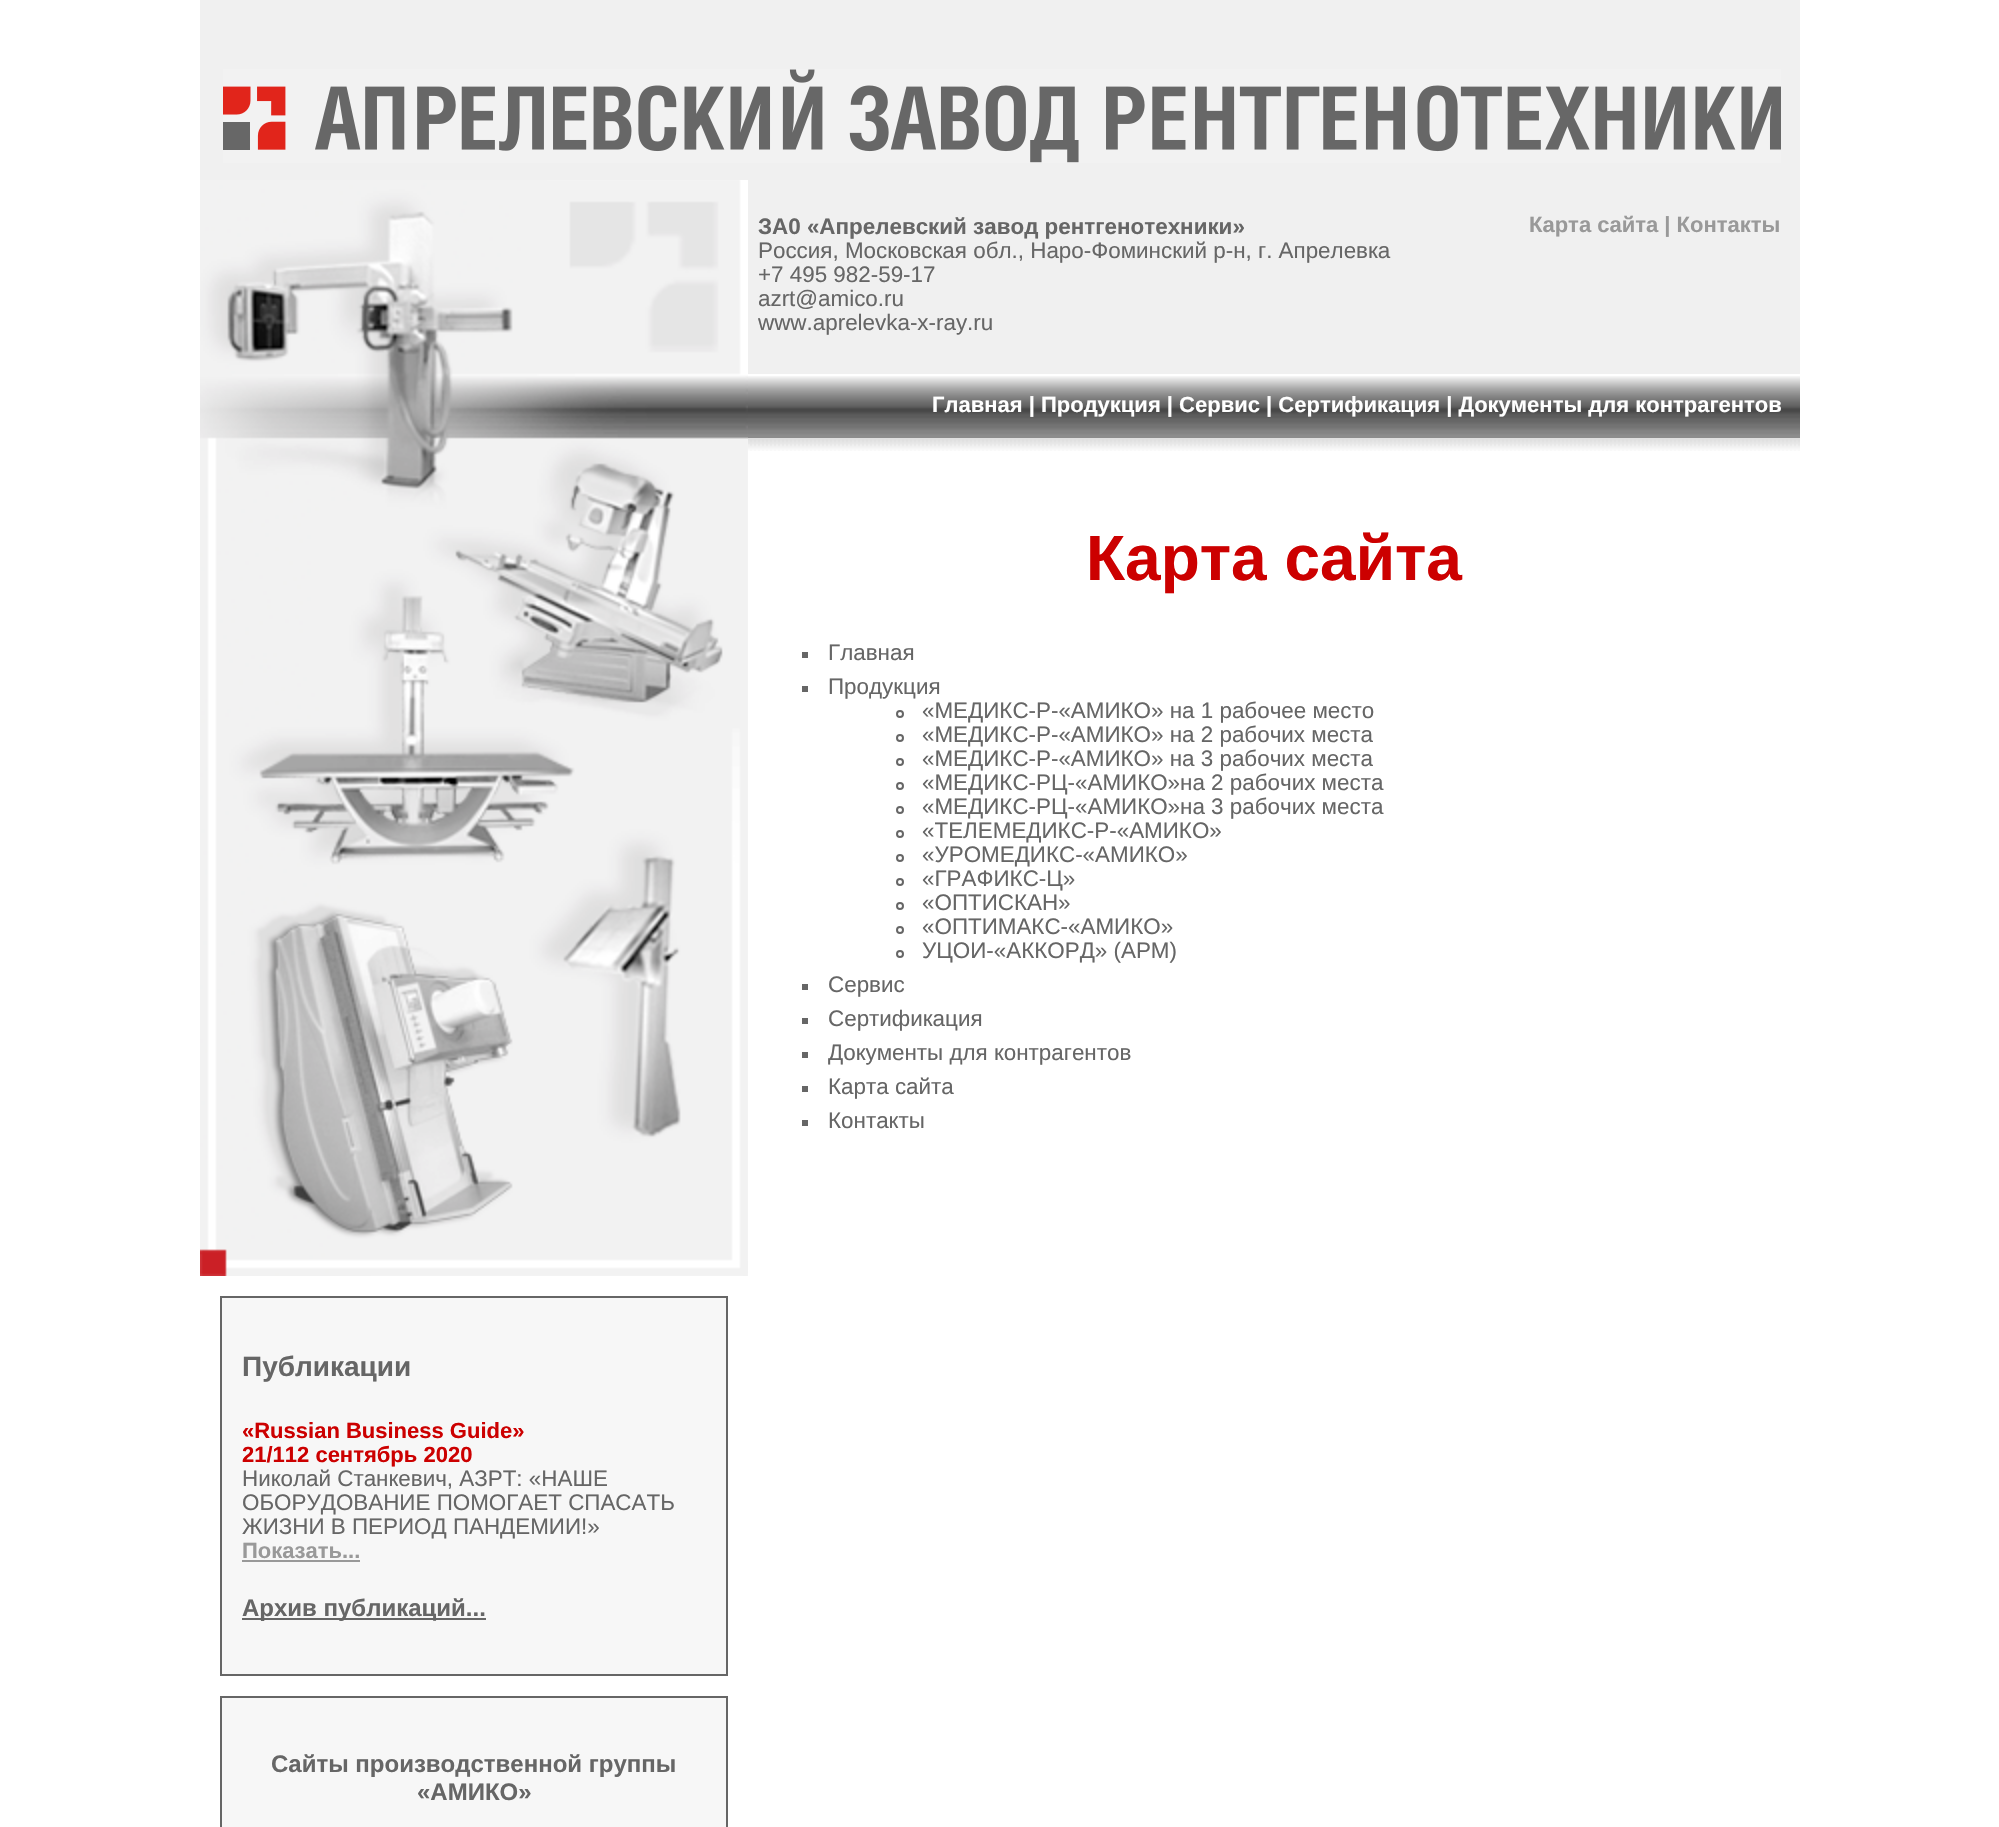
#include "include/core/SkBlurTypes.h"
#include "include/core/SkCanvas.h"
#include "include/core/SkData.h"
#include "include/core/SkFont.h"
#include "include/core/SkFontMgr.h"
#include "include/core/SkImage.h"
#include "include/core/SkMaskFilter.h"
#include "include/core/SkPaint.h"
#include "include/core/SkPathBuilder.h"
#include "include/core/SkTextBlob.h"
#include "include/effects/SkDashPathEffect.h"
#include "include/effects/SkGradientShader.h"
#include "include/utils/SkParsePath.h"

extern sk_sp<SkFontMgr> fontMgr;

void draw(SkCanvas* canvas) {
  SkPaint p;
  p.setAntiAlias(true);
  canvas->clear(SK_ColorWHITE);
  p.setColor(SkColorSetRGB(240, 240, 240));
  canvas->drawRect(SkRect::MakeLTRB(200, 0, 1800, 180), p);
  canvas->drawImageRect(SkImages::DeferredFromEncodedData(SkData::MakeFromFileName("images/1.png")), SkRect::MakeLTRB(223, 69, 1781, 163), SkSamplingOptions());
  canvas->drawImageRect(SkImages::DeferredFromEncodedData(SkData::MakeFromFileName("images/2.png")), SkRect::MakeLTRB(200, 180, 748, 1276), SkSamplingOptions());
  canvas->drawRect(SkRect::MakeLTRB(748, 180, 1800, 374), p);
  canvas->drawImageRect(SkImages::DeferredFromEncodedData(SkData::MakeFromFileName("images/3.png")), SkRect::MakeLTRB(748, 376, 1800, 438), SkSamplingOptions());
  canvas->drawImageRect(SkImages::DeferredFromEncodedData(SkData::MakeFromFileName("images/4.png")), SkRect::MakeLTRB(748, 438, 1800, 451), SkSamplingOptions());
  p.setColor(SkColorSetRGB(102, 102, 102));
  canvas->drawRect(SkRect::MakeLTRB(802, 652, 808, 658), p);
  canvas->drawRect(SkRect::MakeLTRB(802, 686, 808, 692), p);
  p.setStyle(SkPaint::kStroke_Style);
  p.setStrokeWidth(2);
  canvas->drawCircle(900, 714, 3, p);
  canvas->drawCircle(900, 738, 3, p);
  canvas->drawCircle(900, 762, 3, p);
  canvas->drawCircle(900, 786, 3, p);
  canvas->drawCircle(900, 810, 3, p);
  canvas->drawCircle(900, 834, 3, p);
  canvas->drawCircle(900, 858, 3, p);
  canvas->drawCircle(900, 882, 3, p);
  canvas->drawCircle(900, 906, 3, p);
  canvas->drawCircle(900, 930, 3, p);
  canvas->drawCircle(900, 954, 3, p);
  p.setStyle(SkPaint::kFill_Style);
  canvas->drawRect(SkRect::MakeLTRB(802, 984, 808, 990), p);
  canvas->drawRect(SkRect::MakeLTRB(802, 1018, 808, 1024), p);
  canvas->drawRect(SkRect::MakeLTRB(802, 1052, 808, 1058), p);
  canvas->drawRect(SkRect::MakeLTRB(802, 1086, 808, 1092), p);
  canvas->drawRect(SkRect::MakeLTRB(802, 1120, 808, 1126), p);
  p.setColor(SkColorSetRGB(247, 247, 247));
  canvas->drawRect(SkRect::MakeLTRB(221, 1297, 727, 1675), p);
  p.setStyle(SkPaint::kStroke_Style);
  p.setColor(SkColorSetRGB(102, 102, 102));
  canvas->drawRect(SkRect::MakeLTRB(221, 1297, 727, 1675), p);
  p.setStyle(SkPaint::kFill_Style);
  p.setColor(SkColorSetRGB(153, 153, 153));
  canvas->drawRect(SkRect::MakeLTRB(242, 1560, 360, 1562), p);
  p.setColor(SkColorSetRGB(102, 102, 102));
  canvas->drawRect(SkRect::MakeLTRB(242, 1618, 486, 1620), p);
  p.setColor(SkColorSetRGB(247, 247, 247));
  canvas->drawRect(SkRect::MakeLTRB(221, 1697, 727, 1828), p);
  p.setStyle(SkPaint::kStroke_Style);
  p.setColor(SkColorSetRGB(102, 102, 102));
  canvas->drawRect(SkRect::MakeLTRB(221, 1697, 727, 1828), p);
  SkFont font1(fontMgr->matchFamilyStyle("Liberation Sans", SkFontStyle::Bold()), 22.4f);
  font1.setSubpixel(true);
  p.setStyle(SkPaint::kFill_Style);
  canvas->drawString("ЗА0 «Апрелевский завод рентгенотехники»", 758, 234, font1, p);
  SkFont font2(fontMgr->matchFamilyStyle("Liberation Sans", SkFontStyle::Normal()), 22.4f);
  font2.setSubpixel(true);
  canvas->drawString("Россия, Московская обл., Наро-Фоминский р-н, г. Апрелевка", 758, 258, font2, p);
  canvas->drawString("+7 495 982-59-17", 758, 282, font2, p);
  canvas->drawString("azrt@amico.ru", 758, 306, font2, p);
  canvas->drawString("www.aprelevka-x-ray.ru", 758, 330, font2, p);
  SkFont font3(fontMgr->matchFamilyStyle("Liberation Sans", SkFontStyle::Bold()), 22);
  font3.setSubpixel(true);
  p.setColor(SkColorSetRGB(153, 153, 153));
  canvas->drawString("Карта сайта | Контакты", 1529, 232, font3, p);
  p.setColor(SK_ColorWHITE);
  canvas->drawString("Главная | Продукция | Сервис | Сертификация | Документы для контрагентов", 932, 412, font3, p);
  SkFont font4(fontMgr->matchFamilyStyle("Liberation Sans", SkFontStyle::Bold()), 64);
  font4.setSubpixel(true);
  p.setColor(SkColorSetRGB(204, 0, 0));
  canvas->drawString("Карта сайта", 1086, 580, font4, p);
  p.setColor(SkColorSetRGB(102, 102, 102));
  canvas->drawString("Главная", 828, 660, font2, p);
  canvas->drawString("Продукция", 828, 694, font2, p);
  canvas->drawString("«МЕДИКС-Р-«АМИКО» на 1 рабочее место", 922, 718, font2, p);
  canvas->drawString("«МЕДИКС-Р-«АМИКО» на 2 рабочих места", 922, 742, font2, p);
  canvas->drawString("«МЕДИКС-Р-«АМИКО» на 3 рабочих места", 922, 766, font2, p);
  canvas->drawString("«МЕДИКС-РЦ-«АМИКО»на 2 рабочих места", 922, 790, font2, p);
  canvas->drawString("«МЕДИКС-РЦ-«АМИКО»на 3 рабочих места", 922, 814, font2, p);
  canvas->drawString("«ТЕЛЕМЕДИКС-Р-«АМИКО»", 922, 838, font2, p);
  canvas->drawString("«УРОМЕДИКС-«АМИКО»", 922, 862, font2, p);
  canvas->drawString("«ГРАФИКС-Ц»", 922, 886, font2, p);
  canvas->drawString("«ОПТИСКАН»", 922, 910, font2, p);
  canvas->drawString("«ОПТИМАКС-«АМИКО»", 922, 934, font2, p);
  canvas->drawString("УЦОИ-«АККОРД» (АРМ)", 922, 958, font2, p);
  canvas->drawString("Сервис", 828, 992, font2, p);
  canvas->drawString("Сертификация", 828, 1026, font2, p);
  canvas->drawString("Документы для контрагентов", 828, 1060, font2, p);
  canvas->drawString("Карта сайта", 828, 1094, font2, p);
  canvas->drawString("Контакты", 828, 1128, font2, p);
  SkFont font5(fontMgr->matchFamilyStyle("Liberation Sans", SkFontStyle::Bold()), 28);
  font5.setSubpixel(true);
  canvas->drawString("Публикации", 242, 1376, font5, p);
  p.setColor(SkColorSetRGB(204, 0, 0));
  canvas->drawString("«Russian Business Guide»", 242, 1438, font3, p);
  canvas->drawString("21/112 сентябрь 2020", 242, 1462, font3, p);
  p.setColor(SkColorSetRGB(102, 102, 102));
  canvas->drawString("Николай Станкевич, АЗРТ: «НАШЕ", 242, 1486, font2, p);
  canvas->drawString("ОБОРУДОВАНИЕ ПОМОГАЕТ СПАСАТЬ", 242, 1510, font2, p);
  canvas->drawString("ЖИЗНИ В ПЕРИОД ПАНДЕМИИ!»", 242, 1534, font2, p);
  p.setColor(SkColorSetRGB(153, 153, 153));
  canvas->drawString("Показать...", 242, 1558, font3, p);
  SkFont font6(fontMgr->matchFamilyStyle("Liberation Sans", SkFontStyle::Bold()), 24);
  font6.setSubpixel(true);
  p.setColor(SkColorSetRGB(102, 102, 102));
  canvas->drawString("Архив публикаций...", 242, 1616, font6, p);
  canvas->drawString("Сайты производственной группы", 271, 1772, font6, p);
  canvas->drawString("«АМИКО»", 417, 1800, font6, p);
}
